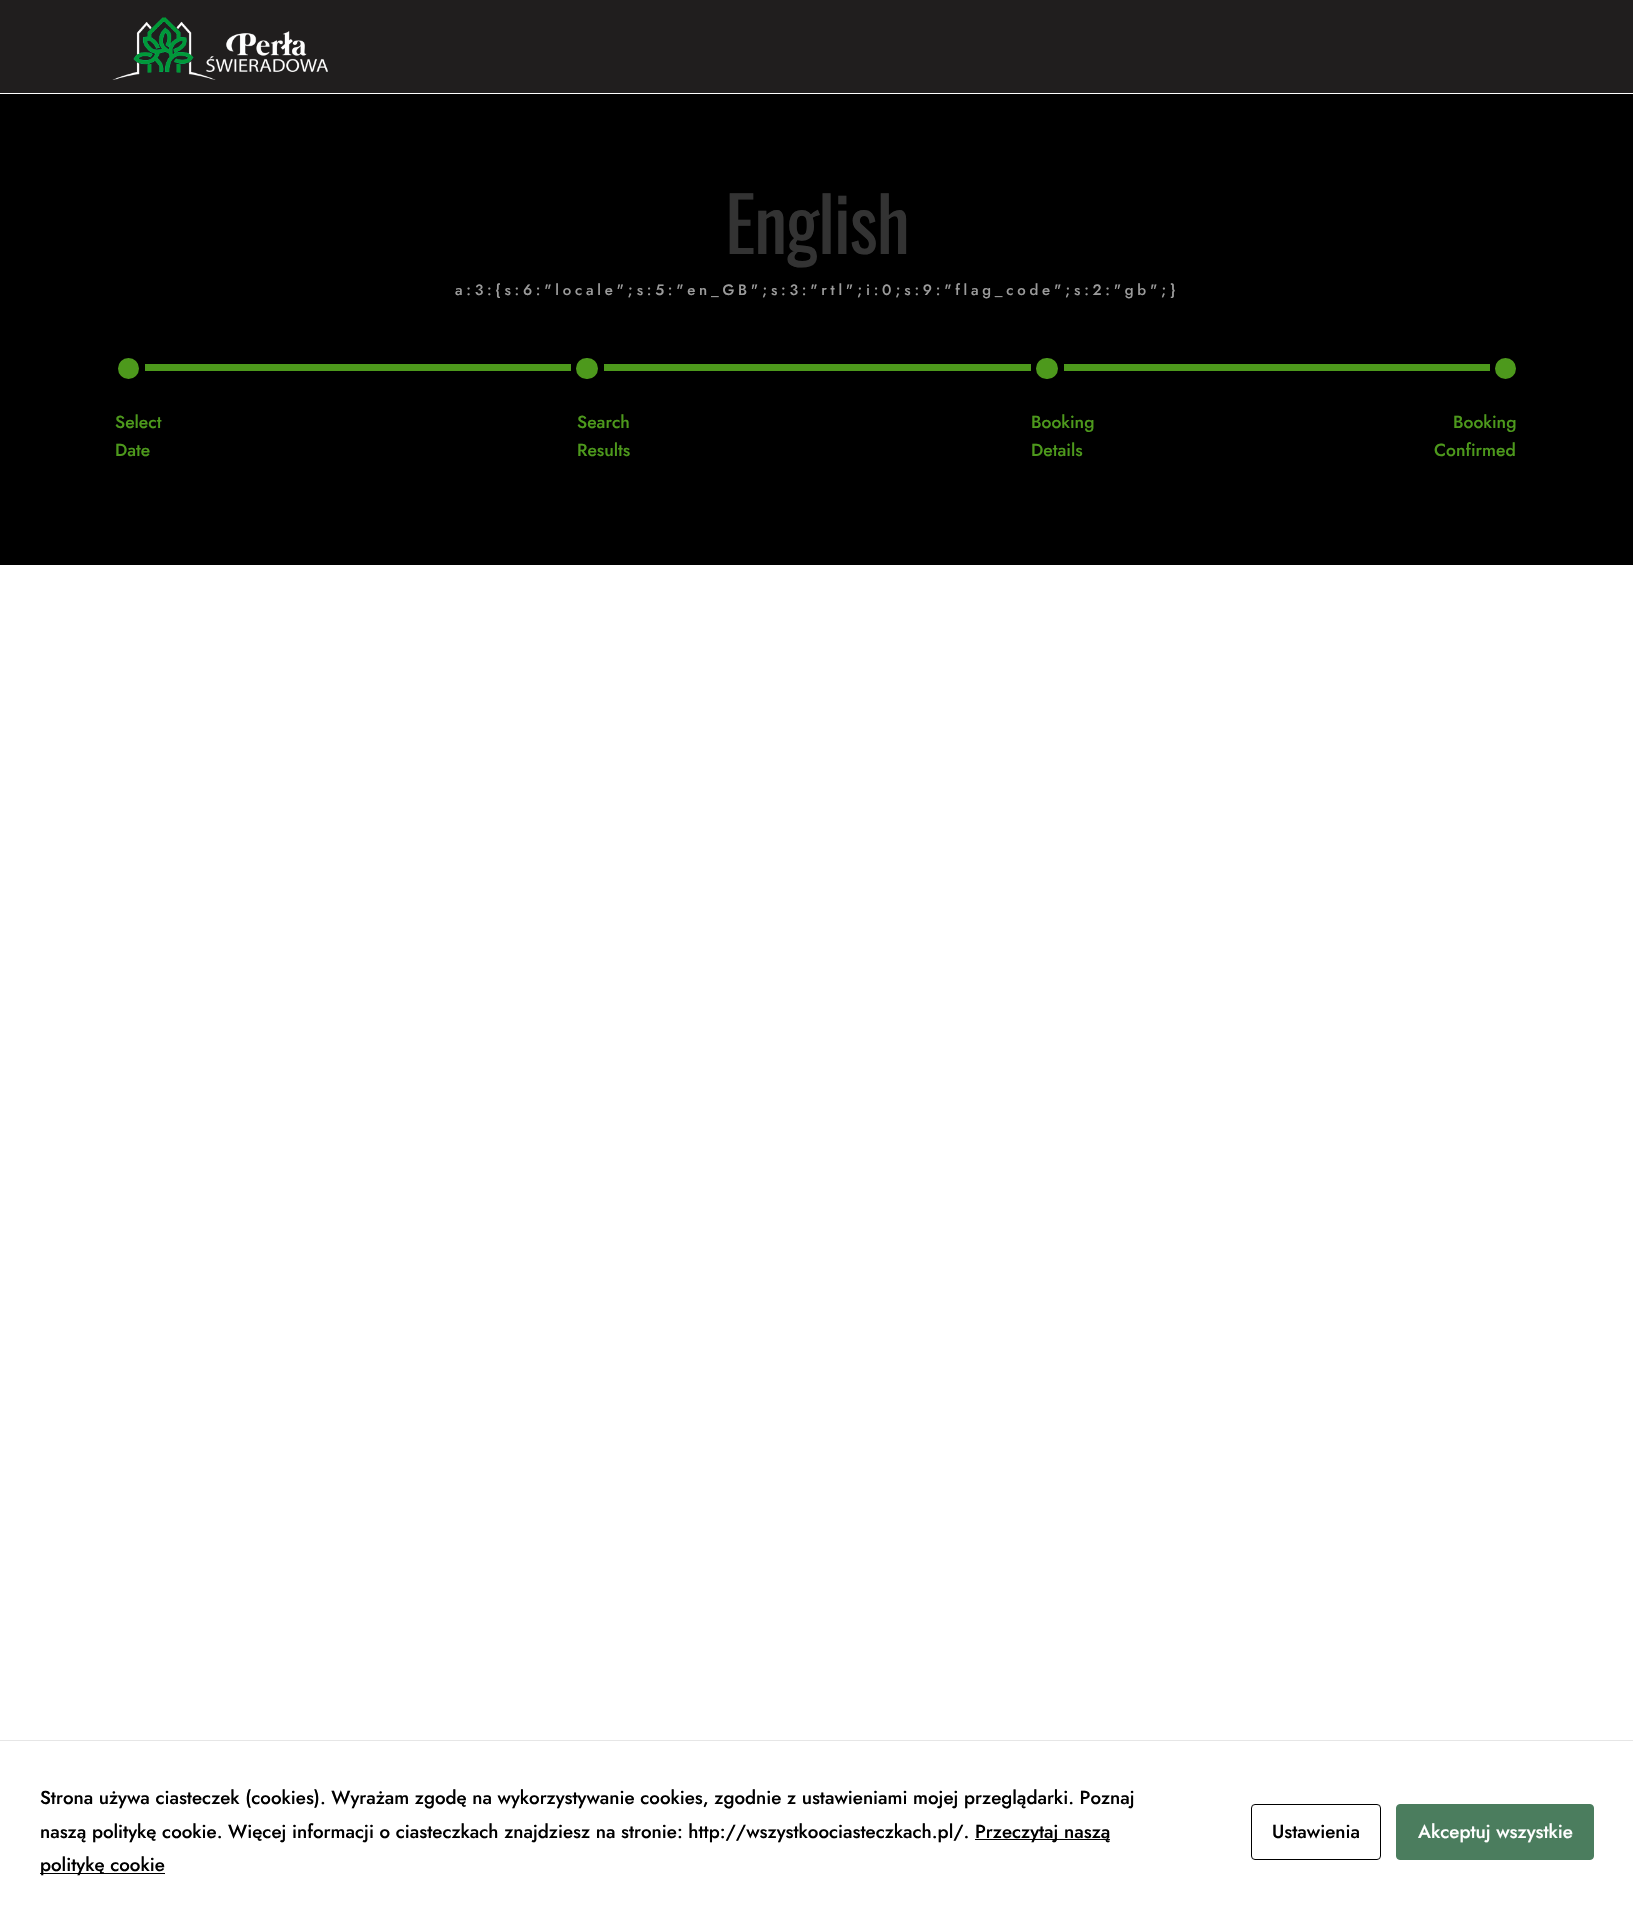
#include "include/core/SkBlurTypes.h"
#include "include/core/SkCanvas.h"
#include "include/core/SkData.h"
#include "include/core/SkFont.h"
#include "include/core/SkFontMgr.h"
#include "include/core/SkImage.h"
#include "include/core/SkMaskFilter.h"
#include "include/core/SkPaint.h"
#include "include/core/SkPathBuilder.h"
#include "include/core/SkTextBlob.h"
#include "include/effects/SkDashPathEffect.h"
#include "include/effects/SkGradientShader.h"
#include "include/utils/SkParsePath.h"

extern sk_sp<SkFontMgr> fontMgr;

void draw(SkCanvas* canvas) {
  SkPaint p;
  p.setAntiAlias(true);
  auto spacedText = [&](const char* s, float x, float y, const SkFont& font, const SkPaint& ink, float letter, float word) {
    std::vector<SkGlyphID> glyphs(font.countText(s, strlen(s), SkTextEncoding::kUTF8));
    std::vector<float> xs(glyphs.size());
    font.textToGlyphs(s, strlen(s), SkTextEncoding::kUTF8, glyphs);
    font.getXPos(glyphs, xs, x);
    float extra = 0;
    for (size_t i = 0; i < glyphs.size(); i++) {
      xs[i] += extra;
      extra += letter + word * (glyphs[i] == font.unicharToGlyph(' '));
    }
    canvas->drawTextBlob(SkTextBlob::MakeFromPosHGlyphs(glyphs, xs, y, font), 0, 0, ink);
  };
  canvas->clear(SK_ColorWHITE);
  p.setColor(SkColorSetRGB(32, 30, 30));
  canvas->drawRect(SkRect::MakeLTRB(0, 0, 1633, 93), p);
  canvas->drawImageRect(SkImages::DeferredFromEncodedData(SkData::MakeFromFileName("images/1.png")), SkRect::MakeLTRB(112, 17, 328, 80), SkSamplingOptions());
  p.setColor(SK_ColorBLACK);
  canvas->drawRect(SkRect::MakeLTRB(0, 94, 1633, 565), p);
  p.setColor(SkColorSetRGB(77, 153, 28));
  canvas->drawCircle(128.5f, 368.5f, 13, p);
  p.setStyle(SkPaint::kStroke_Style);
  p.setStrokeWidth(5);
  p.setColor(SK_ColorBLACK);
  canvas->drawCircle(128.5f, 368.5f, 13, p);
  p.setStyle(SkPaint::kFill_Style);
  p.setColor(SkColorSetRGB(77, 153, 28));
  canvas->drawRect(SkRect::MakeLTRB(145, 364, 571, 371), p);
  canvas->drawRoundRect(SkRect::MakeLTRB(573.5f, 355.5f, 600.5f, 381.5f), 13, 13, p);
  p.setStyle(SkPaint::kStroke_Style);
  p.setColor(SK_ColorBLACK);
  canvas->drawRoundRect(SkRect::MakeLTRB(573.5f, 355.5f, 600.5f, 381.5f), 13, 13, p);
  p.setStyle(SkPaint::kFill_Style);
  p.setColor(SkColorSetRGB(77, 153, 28));
  canvas->drawRect(SkRect::MakeLTRB(604, 364, 1031, 371), p);
  canvas->drawRoundRect(SkRect::MakeLTRB(1033.5f, 355.5f, 1060.5f, 381.5f), 13, 13, p);
  p.setStyle(SkPaint::kStroke_Style);
  p.setColor(SK_ColorBLACK);
  canvas->drawRoundRect(SkRect::MakeLTRB(1033.5f, 355.5f, 1060.5f, 381.5f), 13, 13, p);
  p.setStyle(SkPaint::kFill_Style);
  p.setColor(SkColorSetRGB(77, 153, 28));
  canvas->drawRect(SkRect::MakeLTRB(1064, 364, 1490, 371), p);
  canvas->drawCircle(1505.5f, 368.5f, 13, p);
  p.setStyle(SkPaint::kStroke_Style);
  p.setColor(SK_ColorBLACK);
  canvas->drawCircle(1505.5f, 368.5f, 13, p);
  p.setStyle(SkPaint::kFill_Style);
  p.setColor(SkColorSetRGB(230, 230, 230));
  canvas->drawRect(SkRect::MakeLTRB(0, 1740, 1633, 1741), p);
  p.setColor(SK_ColorBLACK);
  canvas->drawRect(SkRect::MakeLTRB(975, 1839, 1110, 1840), p);
  canvas->drawRect(SkRect::MakeLTRB(40, 1873, 165, 1874), p);
  p.setStyle(SkPaint::kStroke_Style);
  p.setStrokeWidth(1);
  canvas->drawRoundRect(SkRect::MakeLTRB(1251.5f, 1804.5f, 1380.5f, 1859.5f), 3.5f, 3.5f, p);
  p.setStyle(SkPaint::kFill_Style);
  p.setColor(SkColorSetRGB(75, 125, 94));
  canvas->drawRoundRect(SkRect::MakeLTRB(1396.5f, 1804.5f, 1593.5f, 1859.5f), 3.5f, 3.5f, p);
  p.setStyle(SkPaint::kStroke_Style);
  canvas->drawRoundRect(SkRect::MakeLTRB(1396.5f, 1804.5f, 1593.5f, 1859.5f), 3.5f, 3.5f, p);
  SkFont font1(fontMgr->matchFamilyStyle("Oswald", SkFontStyle::Normal()), 75);
  font1.setSubpixel(true);
  p.setStyle(SkPaint::kFill_Style);
  p.setColor(SkColorSetRGB(51, 51, 51));
  spacedText("English", 725, 254, font1, p, -1.25f, 0);
  SkFont font2(fontMgr->matchFamilyStyle("Jost", SkFontStyle(500, SkFontStyle::kNormal_Width, SkFontStyle::kUpright_Slant)), 15);
  font2.setSubpixel(true);
  p.setColor(SkColorSetRGB(155, 155, 155));
  spacedText("a:3:{s:6:\"locale\";s:5:\"en_GB\";s:3:\"rtl\";i:0;s:9:\"flag_code\";s:2:\"gb\";}", 455, 295, font2, p, 3.75f, 0);
  SkFont font3(fontMgr->matchFamilyStyle("Jost", SkFontStyle(500, SkFontStyle::kNormal_Width, SkFontStyle::kUpright_Slant)), 17.5f);
  font3.setSubpixel(true);
  p.setColor(SkColorSetRGB(77, 153, 28));
  canvas->drawString("Select", 115, 428, font3, p);
  canvas->drawString("Date", 115, 456, font3, p);
  canvas->drawString("Search", 577, 428, font3, p);
  canvas->drawString("Results", 577, 456, font3, p);
  canvas->drawString("Booking", 1031, 428, font3, p);
  canvas->drawString("Details", 1031, 456, font3, p);
  canvas->drawString("Booking", 1453, 428, font3, p);
  canvas->drawString("Confirmed", 1434, 456, font3, p);
  SkFont font4(fontMgr->matchFamilyStyle("Jost", SkFontStyle(500, SkFontStyle::kNormal_Width, SkFontStyle::kUpright_Slant)), 18.75f);
  font4.setSubpixel(true);
  p.setColor(SK_ColorBLACK);
  canvas->drawString("Strona używa ciasteczek (cookies). Wyrażam zgodę na wykorzystywanie cookies, zgodnie z ustawieniami mojej przeglądarki. Poznaj", 40, 1804, font4, p);
  canvas->drawString("naszą politykę cookie. Więcej informacji o ciasteczkach znajdziesz na stronie: http://wszystkoociasteczkach.pl/.", 40, 1838, font4, p);
  canvas->drawString("Przeczytaj naszą", 975, 1838, font4, p);
  canvas->drawString("politykę cookie", 40, 1871, font4, p);
  canvas->drawString("Ustawienia", 1272, 1838, font4, p);
  p.setColor(SK_ColorWHITE);
  canvas->drawString("Akceptuj wszystkie", 1418, 1838, font4, p);
}
